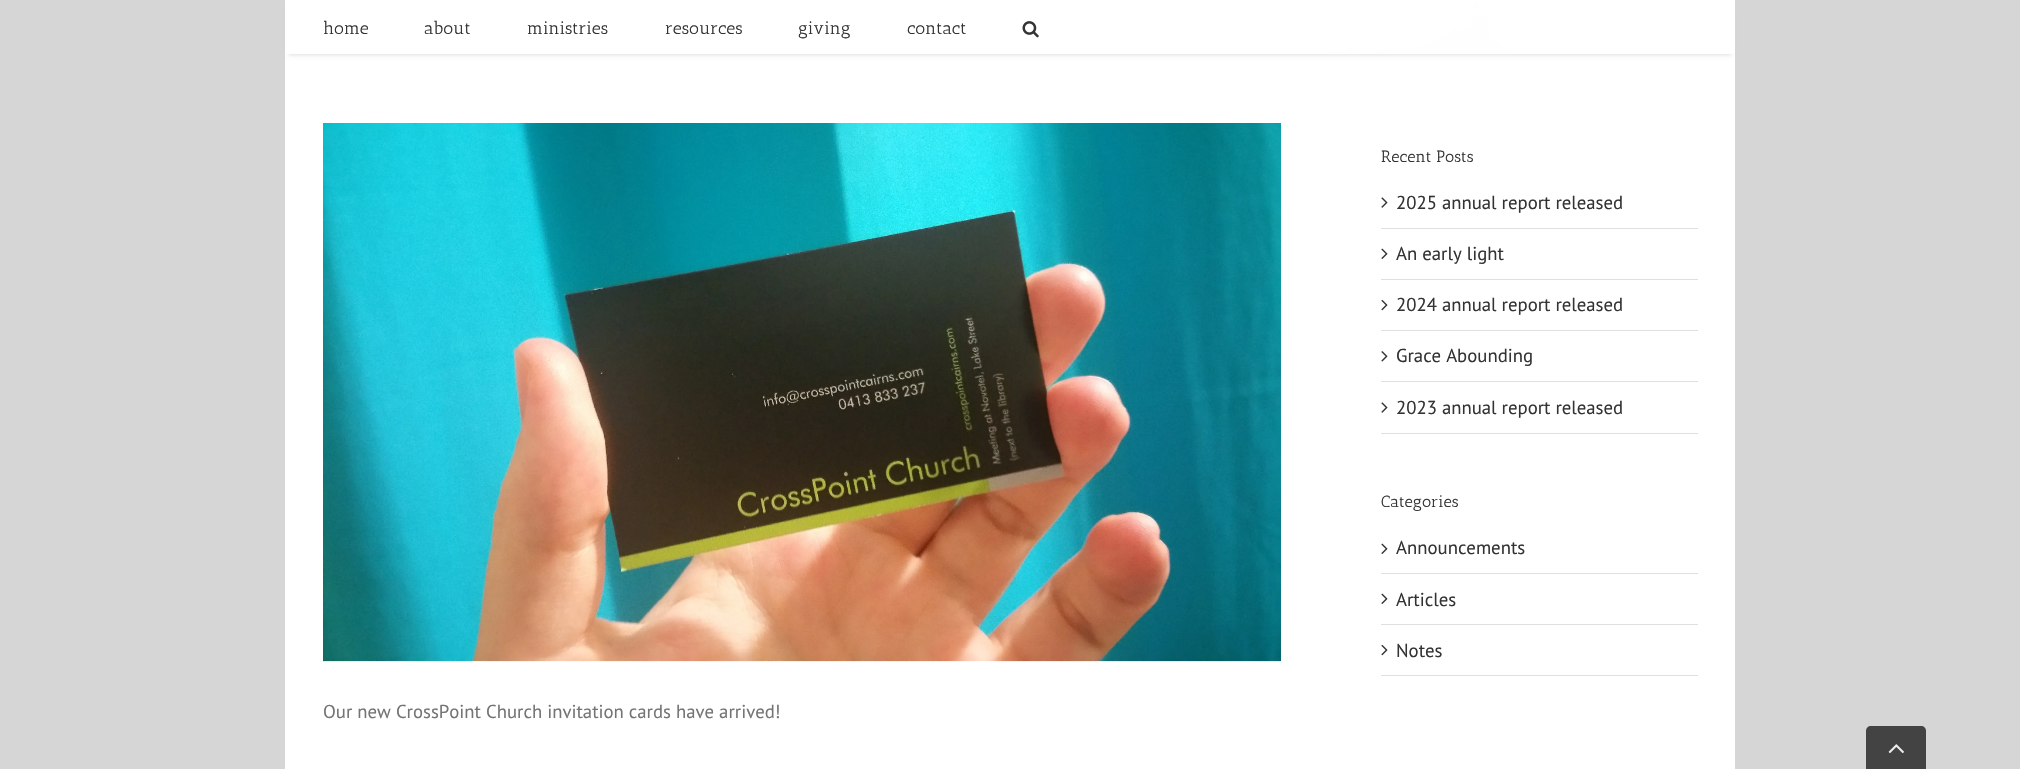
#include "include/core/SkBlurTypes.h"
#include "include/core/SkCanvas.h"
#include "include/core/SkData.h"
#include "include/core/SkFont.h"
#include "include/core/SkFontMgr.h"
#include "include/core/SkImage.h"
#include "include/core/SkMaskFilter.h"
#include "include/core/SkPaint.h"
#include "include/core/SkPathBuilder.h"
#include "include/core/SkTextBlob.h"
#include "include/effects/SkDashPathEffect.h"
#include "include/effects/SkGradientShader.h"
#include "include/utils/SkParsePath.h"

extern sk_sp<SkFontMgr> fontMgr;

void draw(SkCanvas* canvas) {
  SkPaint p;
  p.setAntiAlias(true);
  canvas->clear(SkColorSetRGB(215, 214, 214));
  p.setColor(SkColorSetRGB(246, 246, 246));
  canvas->drawRect(SkRect::MakeLTRB(285, 0, 1735, 53), p);
  canvas->drawImageRect(SkImages::DeferredFromEncodedData(SkData::MakeFromFileName("images/1.png")), SkRect::MakeLTRB(285, 0, 1707, 53), SkSamplingOptions());
  p.setColor(SkColorSetRGB(210, 211, 212));
  canvas->drawRect(SkRect::MakeLTRB(285, 53, 1735, 54), p);
  p.setColor(SK_ColorWHITE);
  canvas->drawRect(SkRect::MakeLTRB(285, 54, 1735, 769), p);
  canvas->save();
  canvas->clipPath(SkPathBuilder(SkPathFillType::kEvenOdd).moveTo(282, 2).lineTo(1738, 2).lineTo(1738, 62).lineTo(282, 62).close().moveTo(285, 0).lineTo(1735, 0).lineTo(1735, 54).lineTo(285, 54).close().detach(), true);
  p.setColor(SkColorSetARGB(31, 0, 0, 0));
  p.setMaskFilter(SkMaskFilter::MakeBlur(kNormal_SkBlurStyle, 2));
  canvas->drawRect(SkRect::MakeLTRB(289, 9, 1731, 55), p);
  p.setMaskFilter(nullptr);
  canvas->restore();
  p.setColor(SkColorSetARGB(247, 255, 255, 255));
  canvas->drawRect(SkRect::MakeLTRB(285, 0, 1735, 54), p);
  canvas->drawImageRect(SkImages::DeferredFromEncodedData(SkData::MakeFromFileName("images/2.png")), SkRect::MakeLTRB(1022, 21, 1039, 38), SkSamplingOptions());
  p.setColor(SkColorSetRGB(224, 222, 222));
  canvas->drawRect(SkRect::MakeLTRB(1381, 228, 1698, 229), p);
  canvas->drawImageRect(SkImages::DeferredFromEncodedData(SkData::MakeFromFileName("images/3.png")), SkRect::MakeLTRB(1381, 197, 1388, 208), SkSamplingOptions());
  canvas->drawRect(SkRect::MakeLTRB(1381, 279, 1698, 280), p);
  canvas->drawImageRect(SkImages::DeferredFromEncodedData(SkData::MakeFromFileName("images/4.png")), SkRect::MakeLTRB(1381, 248, 1388, 259), SkSamplingOptions());
  canvas->drawRect(SkRect::MakeLTRB(1381, 330, 1698, 331), p);
  canvas->drawImageRect(SkImages::DeferredFromEncodedData(SkData::MakeFromFileName("images/5.png")), SkRect::MakeLTRB(1381, 299, 1388, 311), SkSamplingOptions());
  canvas->drawRect(SkRect::MakeLTRB(1381, 381, 1698, 382), p);
  canvas->drawImageRect(SkImages::DeferredFromEncodedData(SkData::MakeFromFileName("images/6.png")), SkRect::MakeLTRB(1381, 351, 1388, 362), SkSamplingOptions());
  canvas->drawRect(SkRect::MakeLTRB(1381, 433, 1698, 434), p);
  canvas->drawImageRect(SkImages::DeferredFromEncodedData(SkData::MakeFromFileName("images/3.png")), SkRect::MakeLTRB(1381, 402, 1388, 413), SkSamplingOptions());
  canvas->drawRect(SkRect::MakeLTRB(1381, 573, 1698, 574), p);
  canvas->drawImageRect(SkImages::DeferredFromEncodedData(SkData::MakeFromFileName("images/4.png")), SkRect::MakeLTRB(1381, 543, 1388, 554), SkSamplingOptions());
  canvas->drawRect(SkRect::MakeLTRB(1381, 624, 1698, 625), p);
  canvas->drawImageRect(SkImages::DeferredFromEncodedData(SkData::MakeFromFileName("images/4.png")), SkRect::MakeLTRB(1381, 593, 1388, 604), SkSamplingOptions());
  canvas->drawRect(SkRect::MakeLTRB(1381, 675, 1698, 676), p);
  canvas->drawImageRect(SkImages::DeferredFromEncodedData(SkData::MakeFromFileName("images/5.png")), SkRect::MakeLTRB(1381, 644, 1388, 656), SkSamplingOptions());
  canvas->drawImageRect(SkImages::DeferredFromEncodedData(SkData::MakeFromFileName("images/7.png")), SkRect::MakeLTRB(323, 123, 1281, 662), SkSamplingOptions());
  p.setColor(SkColorSetRGB(67, 67, 67));
  canvas->drawPath(SkPathBuilder().moveTo(1871, 726).lineTo(1921, 726).cubicTo(1924, 726, 1926, 728, 1926, 731).lineTo(1926, 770).lineTo(1866, 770).lineTo(1866, 731).cubicTo(1866, 728, 1868, 726, 1871, 726).close().detach(), p);
  canvas->drawImageRect(SkImages::DeferredFromEncodedData(SkData::MakeFromFileName("images/8.png")), SkRect::MakeLTRB(1888, 744, 1904, 754), SkSamplingOptions());
  SkFont font1(fontMgr->matchFamilyStyle("Antic Slab", SkFontStyle::Normal()), 17.5f);
  font1.setSubpixel(true);
  p.setColor(SkColorSetRGB(51, 51, 51));
  canvas->drawString("home", 323, 34, font1, p);
  canvas->drawString("about", 424, 34, font1, p);
  canvas->drawString("ministries", 527, 34, font1, p);
  canvas->drawString("resources", 665, 34, font1, p);
  canvas->drawString("giving", 798, 34, font1, p);
  canvas->drawString("contact", 907, 34, font1, p);
  SkFont font2(fontMgr->matchFamilyStyle("Antic Slab", SkFontStyle::Normal()), 16.25f);
  font2.setSubpixel(true);
  canvas->drawString("Recent Posts", 1381, 162, font2, p);
  SkFont font3(fontMgr->matchFamilyStyle("PT Sans", SkFontStyle::Normal()), 18.75f);
  font3.setSubpixel(true);
  canvas->drawString("2025 annual report released", 1396, 209, font3, p);
  canvas->drawString("An early light", 1396, 260, font3, p);
  canvas->drawString("2024 annual report released", 1396, 311, font3, p);
  canvas->drawString("Grace Abounding", 1396, 362, font3, p);
  canvas->drawString("2023 annual report released", 1396, 414, font3, p);
  canvas->drawString("Categories", 1381, 507, font2, p);
  canvas->drawString("Announcements", 1396, 554, font3, p);
  canvas->drawString("Articles", 1396, 606, font3, p);
  canvas->drawString("Notes", 1396, 657, font3, p);
  p.setColor(SkColorSetRGB(116, 116, 116));
  canvas->drawString("Our new CrossPoint Church invitation cards have arrived!", 323, 718, font3, p);
}
